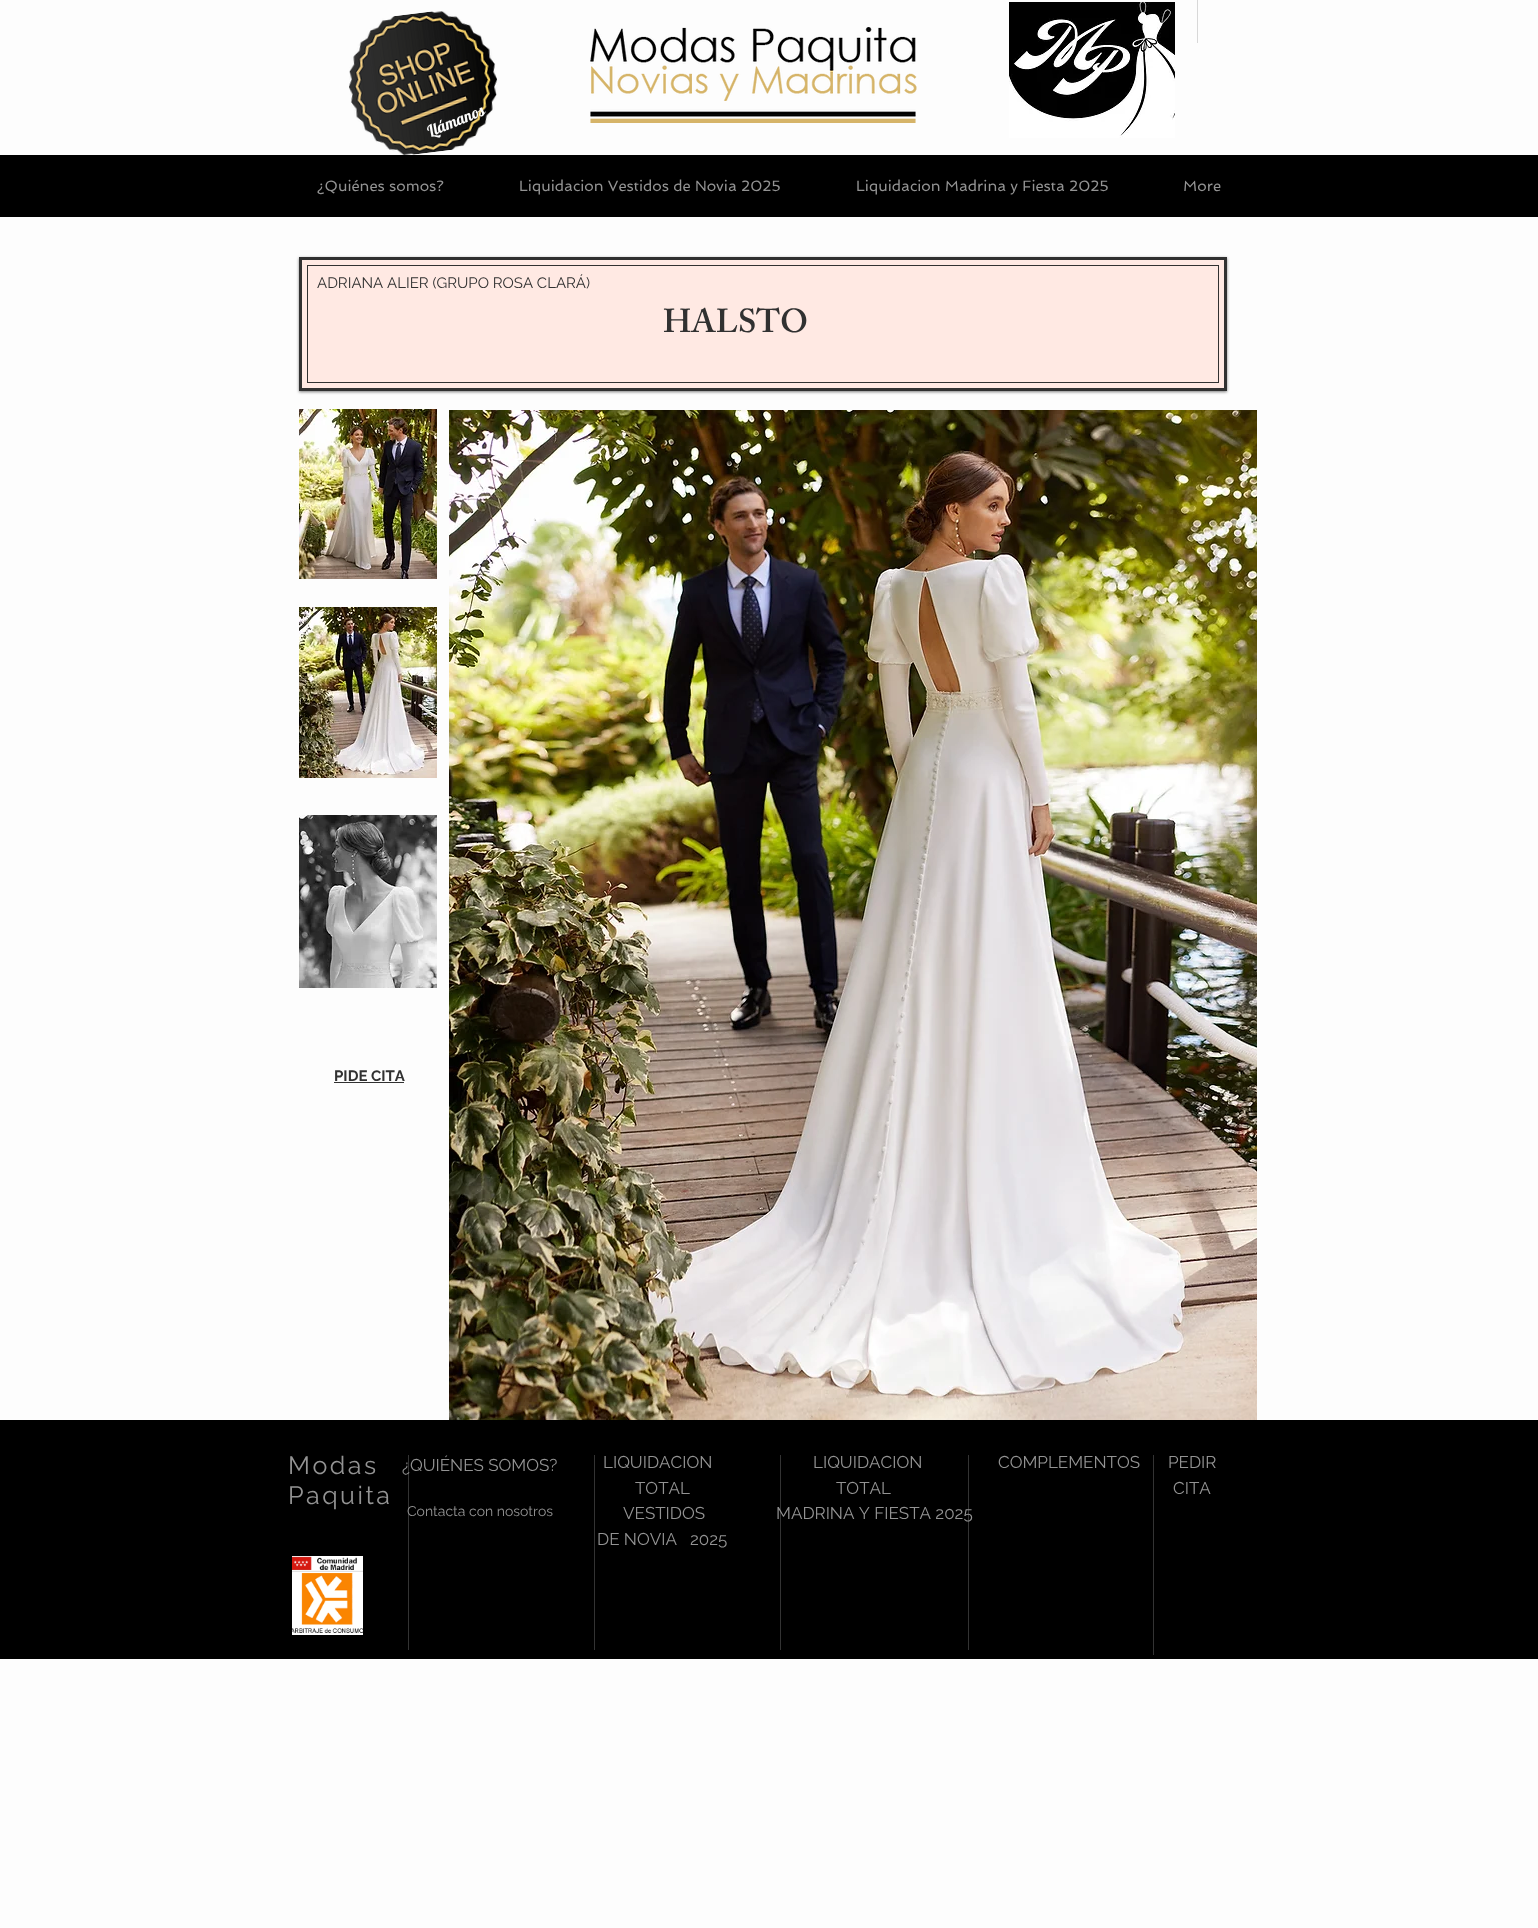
<?xml version="1.0" encoding="UTF-8"?>
<svg xmlns="http://www.w3.org/2000/svg" width="1538" height="1928">
    <style>*{font-kerning:none!important;font-variant-ligatures:none!important}</style>
    <defs>
        <filter id="blur1" x="-50%" y="-200%" width="200%" height="500%"><feGaussianBlur stdDeviation="1.5"/></filter>
    </defs>
    <rect width="100%" height="100%" fill="#FDFDFD"/>
    <image x="349" y="11" width="149" height="144" href="img_01.png"/>
    <image x="590" y="27" width="327" height="96" href="img_02.png"/>
    <image x="1009" y="2" width="166" height="136" href="img_03.png"/>
    <rect x="1197" y="0" width="1" height="43" fill="#D8D8D8"/>
    <text x="430" y="137" transform="rotate(-21.9 430 137)" font-family="Lobster" font-size="16" fill="#FDFDFD">Llámanos</text>
    <rect x="0" y="155" width="1538" height="62" fill="#000000"/>
    <text x="317" y="191" font-family="Spinnaker" font-size="15" fill="#939393">¿Quiénes somos?</text>
    <text x="519" y="191" font-family="Spinnaker" font-size="15" fill="#939393">Liquidacion Vestidos de Novia 2025</text>
    <text x="856" y="191" font-family="Spinnaker" font-size="15" fill="#939393">Liquidacion Madrina y Fiesta 2025</text>
    <text x="1183" y="191" font-family="Spinnaker" font-size="15" fill="#939393">More</text>
    <rect x="299" y="258" width="928" height="134" fill="#000000" fill-opacity="0.5" filter="url(#blur1)"/>
    <rect x="300.5" y="258.5" width="925" height="131" fill="#FFE9E3" stroke="#313131" stroke-width="3"/>
    <rect x="307.5" y="265.5" width="911" height="117" fill="none" stroke="#313131"/>
    <text x="317" y="288" font-family="Raleway" font-size="15" fill="#313131">ADRIANA ALIER (GRUPO ROSA CLARÁ)</text>
    <text x="663" y="332" font-family="'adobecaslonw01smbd'" font-size="33" font-weight="600" fill="#313131">HALSTO</text>
    <image x="299" y="409" width="138" height="170" href="img_04.png"/>
    <image x="449" y="410" width="808" height="1010" href="img_05.png"/>
    <image x="299" y="607" width="138" height="171" href="img_06.png"/>
    <image x="299" y="815" width="138" height="173" href="img_07.png"/>
    <text x="334" y="1081" font-family="Raleway" font-size="15" font-weight="700" fill="#313131">PIDE CITA</text>
    <rect x="334" y="1082" width="70" height="1" fill="#313131"/>
    <rect x="0" y="1420" width="1538" height="239" fill="#000000"/>
    <text font-family="Raleway" font-size="25" letter-spacing="2.5" fill="#939393">
        <tspan x="288" y="1474">Modas</tspan>
        <tspan x="288" y="1504">Paquita</tspan>
    </text>
    <text x="402" y="1471" font-family="Raleway" font-size="17" fill="#939393">¿QUIÉNES SOMOS?</text>
    <text x="407" y="1516" font-family="Raleway" font-size="14" fill="#939393">Contacta con nosotros</text>
    <rect x="408" y="1455" width="1" height="195" fill="#939393" fill-opacity="0.35"/>
    <rect x="594" y="1455" width="1" height="195" fill="#333333"/>
    <text x="603" y="1468" font-family="Raleway" font-size="17" fill="#939393">LIQUIDACION</text>
    <text x="635" y="1494" font-family="Raleway" font-size="17" fill="#939393">TOTAL</text>
    <text x="623" y="1519" font-family="Raleway" font-size="17" fill="#939393">VESTIDOS</text>
    <text x="597" y="1545" font-family="Raleway" font-size="17" fill="#939393">DE NOVIA</text>
    <text x="690" y="1545" font-family="Raleway" font-size="17" fill="#939393">2025</text>
    <text x="813" y="1468" font-family="Raleway" font-size="17" fill="#939393">LIQUIDACION</text>
    <text x="836" y="1494" font-family="Raleway" font-size="17" fill="#939393">TOTAL</text>
    <text x="776" y="1519" font-family="Raleway" font-size="17" fill="#939393">MADRINA Y FIESTA 2025</text>
    <rect x="780" y="1455" width="1" height="195" fill="#939393" fill-opacity="0.35"/>
    <rect x="968" y="1455" width="1" height="195" fill="#939393" fill-opacity="0.35"/>
    <text x="998" y="1468" font-family="Raleway" font-size="17" fill="#939393">COMPLEMENTOS</text>
    <rect x="1153" y="1455" width="1" height="200" fill="#333333"/>
    <text x="1168" y="1468" font-family="Raleway" font-size="17" fill="#939393">PEDIR</text>
    <text x="1173" y="1494" font-family="Raleway" font-size="17" fill="#939393">CITA</text>
    <image x="292" y="1556" width="71" height="79" href="img_08.png"/>
</svg>
